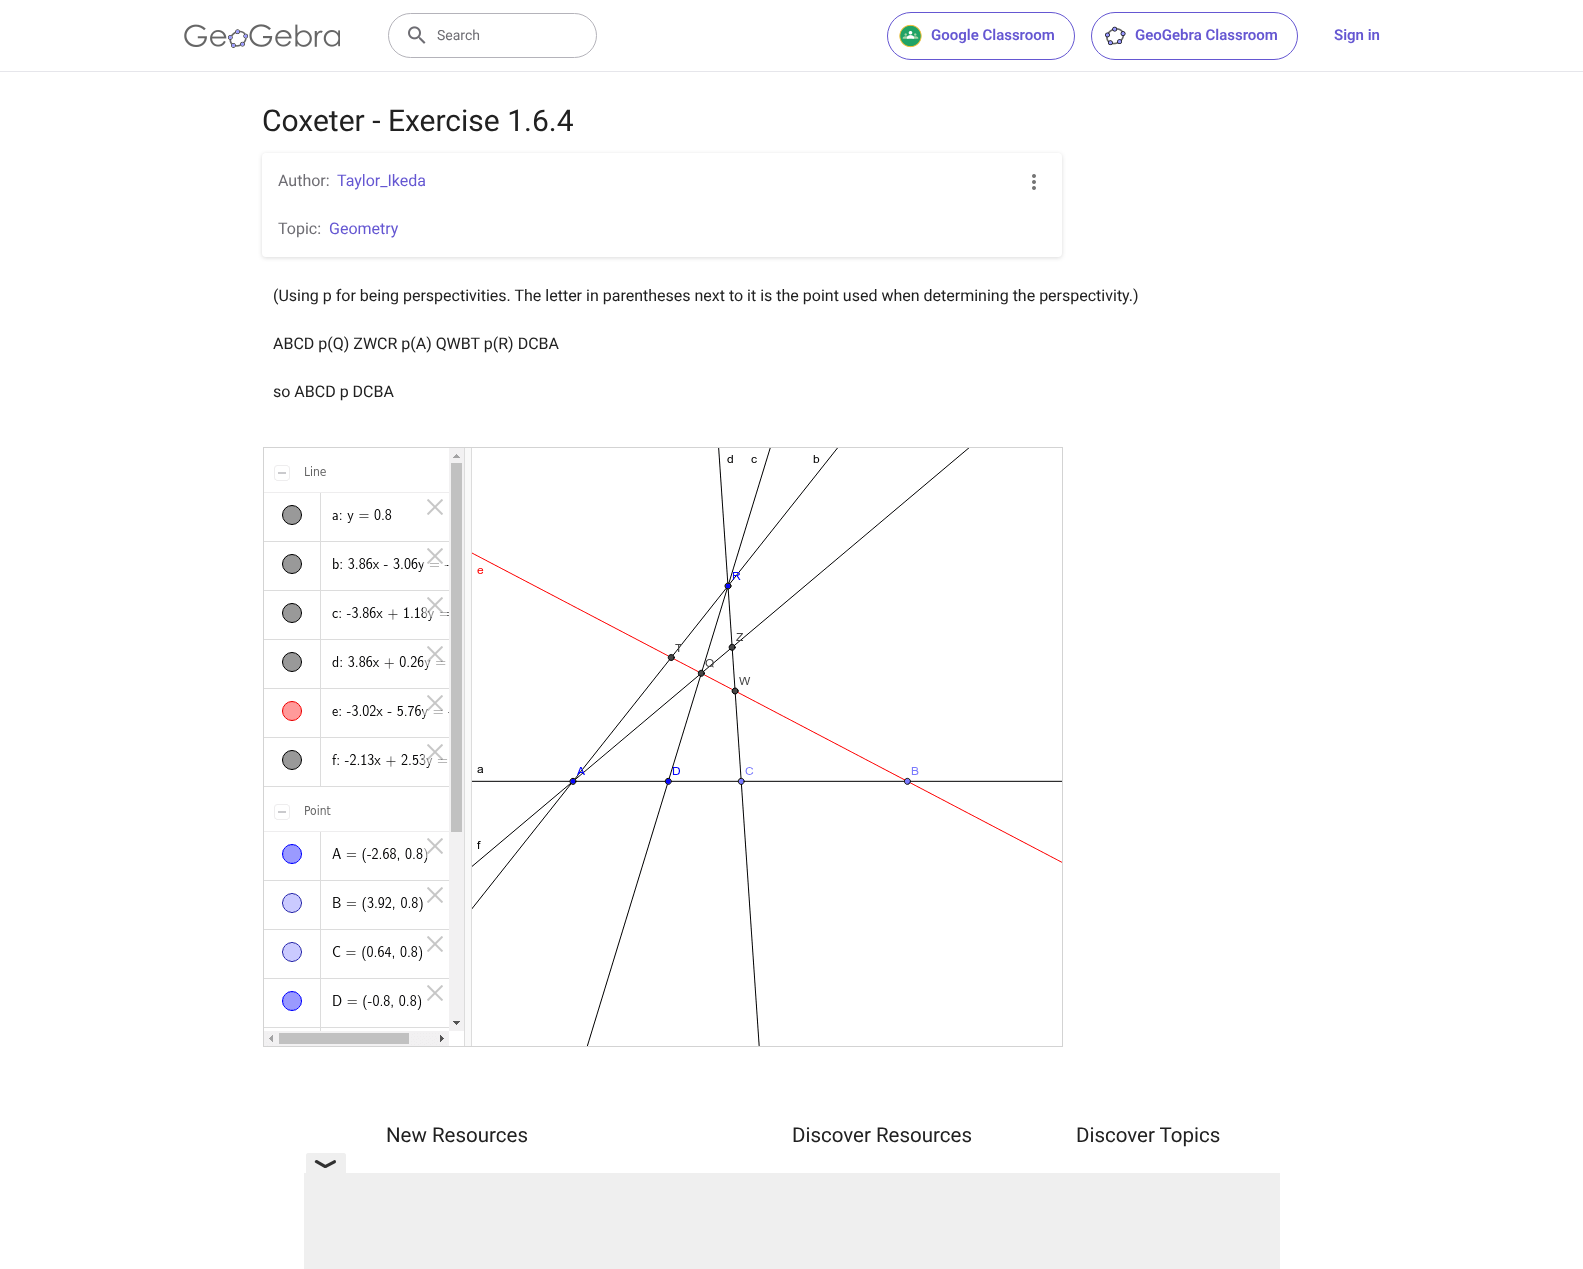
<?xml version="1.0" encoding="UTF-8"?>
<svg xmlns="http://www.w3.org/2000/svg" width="1583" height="1269">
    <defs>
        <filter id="blur1" x="-50%" y="-200%" width="200%" height="500%"><feGaussianBlur stdDeviation="2"/></filter>
    </defs>
    <rect width="100%" height="100%" fill="#FFFFFF"/>
    <rect x="0" y="71" width="1583" height="1" fill="#E6E6EB"/>
    <image x="184" y="24" width="156" height="24" href="img_01.png"/>
    <rect x="388.5" y="13.5" width="208" height="44" rx="22" fill="none" stroke="#B4B3BA"/>
    <image x="408" y="26" width="18" height="18" href="img_02.png"/>
    <text x="437" y="40" font-family="Roboto" font-size="14" fill="#6E6D73">Search</text>
    <rect x="887.5" y="12.5" width="187" height="47" rx="23.5" fill="none" stroke="#6557D2"/>
    <image x="899" y="24" width="23" height="24" href="img_03.png"/>
    <text x="931" y="40" font-family="Roboto" font-size="15" font-weight="600" fill="#6557D2">Google Classroom</text>
    <rect x="1091.5" y="12.5" width="206" height="47" rx="23.5" fill="none" stroke="#6557D2"/>
    <image x="1105" y="26" width="21" height="20" href="img_04.png"/>
    <text x="1135" y="40" font-family="Roboto" font-size="15" font-weight="600" fill="#6557D2">GeoGebra Classroom</text>
    <text x="1334" y="40" font-family="Roboto" font-size="15" font-weight="600" fill="#6557D2">Sign in</text>
    <text x="262" y="131" font-family="Roboto" font-size="30" fill="#212121">Coxeter - Exercise 1.6.4</text>
    <rect x="262" y="154" width="800" height="104" rx="4" fill="#1C1C1F" fill-opacity="0.14" filter="url(#blur1)"/>
    <rect x="262" y="153" width="800" height="104" rx="4" fill="#FFFFFF"/>
    <text x="278" y="186" font-family="Roboto" font-size="16" fill="#6E6D73">Author:</text>
    <text x="337" y="186" font-family="Roboto" font-size="16" fill="#6557D2">Taylor_Ikeda</text>
    <text x="278" y="234" font-family="Roboto" font-size="16" fill="#6E6D73">Topic:</text>
    <text x="329" y="234" font-family="Roboto" font-size="16" fill="#6557D2">Geometry</text>
    <image x="1032" y="174" width="4" height="16" href="img_05.png"/>
    <text x="273" y="301" font-family="Roboto" font-size="16" fill="#212121">(Using p for being perspectivities. The letter in parentheses next to it is the point used when determining the perspectivity.)</text>
    <text x="273" y="349" font-family="Roboto" font-size="16" fill="#212121">ABCD p(Q) ZWCR p(A) QWBT p(R) DCBA</text>
    <text x="273" y="397" font-family="Roboto" font-size="16" fill="#212121">so ABCD p DCBA</text>
    <image x="264" y="448" width="798" height="598" href="img_06.png"/>
    <rect x="263.5" y="447.5" width="799" height="599" fill="none" stroke="#D3D3D3"/>
    <text x="386" y="1142" font-family="Roboto" font-size="20.5" fill="#212121">New Resources</text>
    <text x="792" y="1142" font-family="Roboto" font-size="20.5" fill="#212121">Discover Resources</text>
    <text x="1076" y="1142" font-family="Roboto" font-size="20.5" fill="#212121">Discover Topics</text>
    <path d="M 308 1153 H 344 C 345 1153 346 1154 346 1155 V 1173 H 306 V 1155 C 306 1154 307 1153 308 1153 Z" fill="#EFEFEF"/>
    <path d="M 317 1160 L 326.5 1165.5 C 327 1167 325.5 1168.5 324.5 1168 L 315 1162.5 C 314 1161 316 1159.5 317 1160 Z" fill="#313131"/>
    <path d="M 325 1165 L 334.5 1160 C 336 1160 336.5 1162 335.5 1163 L 326 1168 C 324.5 1168 324 1166 325 1165 Z" fill="#313131"/>
    <rect x="304" y="1173" width="976" height="96" fill="#EFEFEF"/>
</svg>
